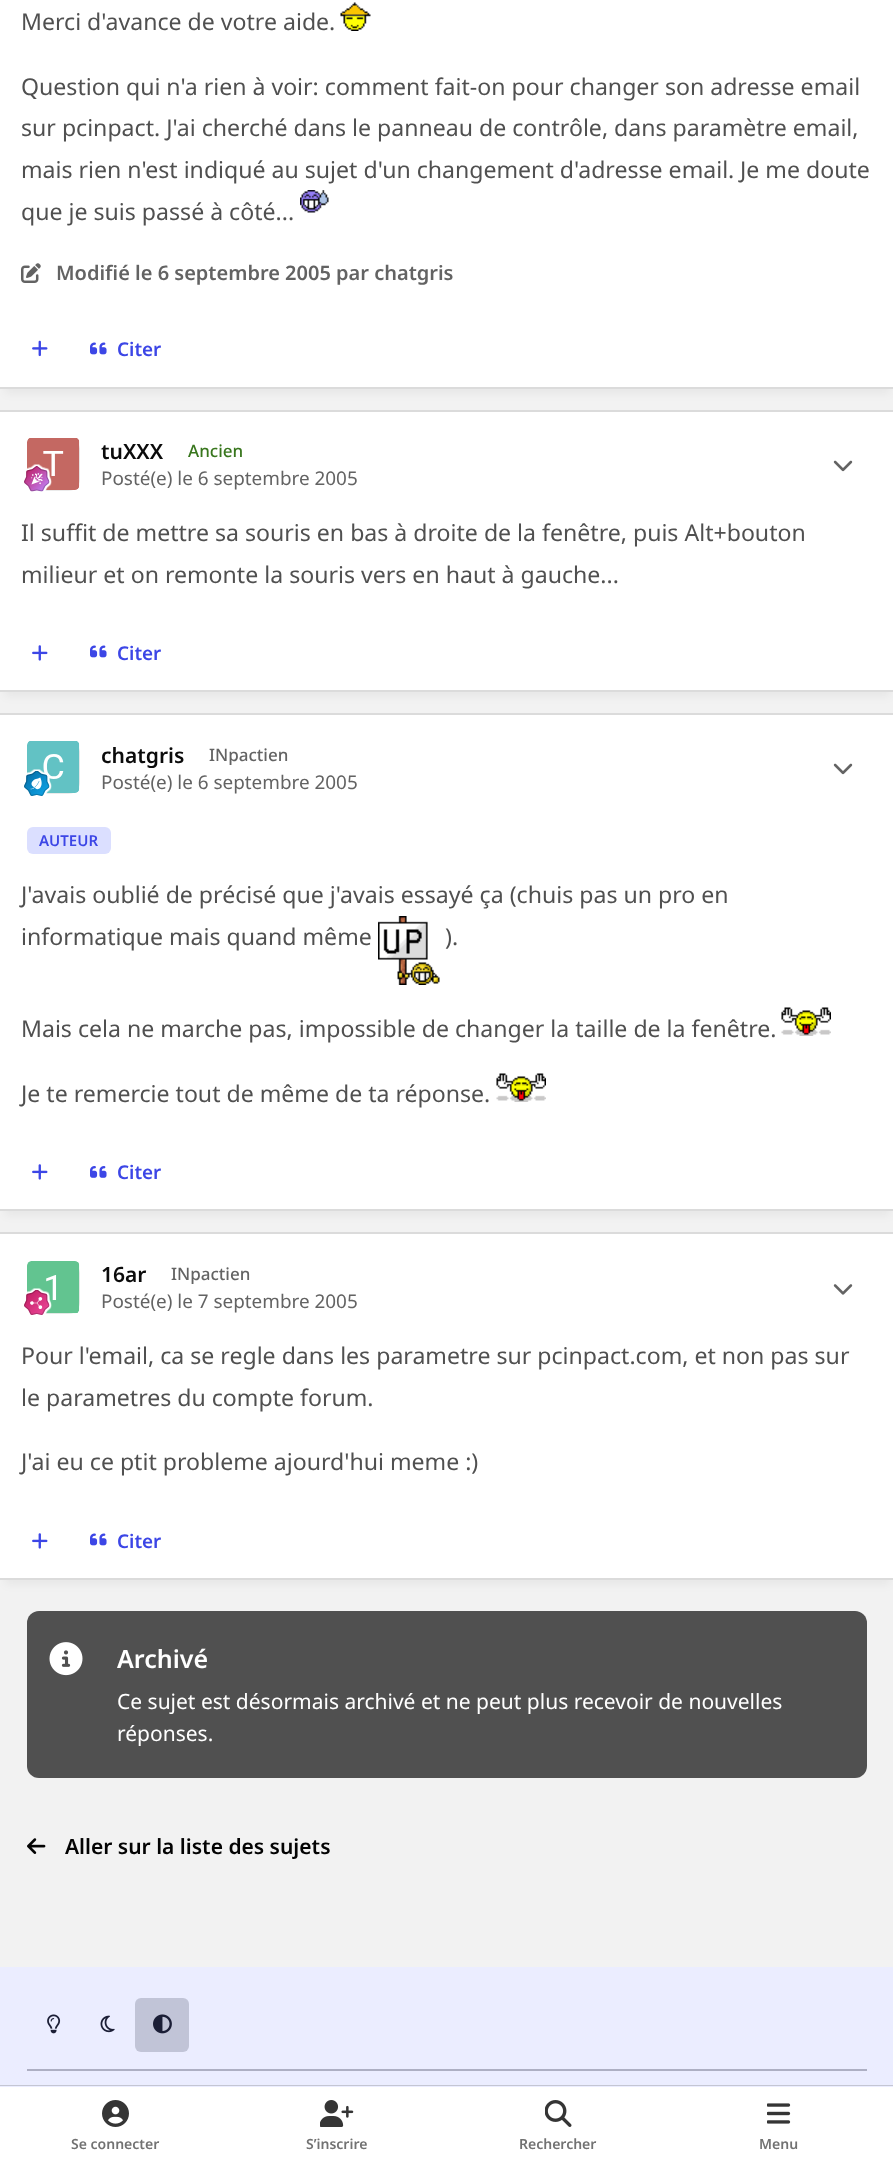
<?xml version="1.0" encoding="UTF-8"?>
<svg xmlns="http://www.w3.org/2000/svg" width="893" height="2168">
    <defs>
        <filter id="blur1" x="-50%" y="-200%" width="200%" height="500%"><feGaussianBlur stdDeviation="5"/></filter>
    </defs>
    <rect width="100%" height="100%" fill="#F2F2F2"/>
    <rect x="5" y="-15" width="885" height="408" fill="#030303" fill-opacity="0.05" filter="url(#blur1)"/>
    <rect x="0" y="0" width="893" height="387" fill="#FFFFFF"/>
    <rect x="0" y="387" width="893" height="2" fill="#DBDBDB"/>
    <text x="21" y="30" font-family="Noto Sans" font-size="23.1" fill="#505050">Merci d'avance de votre aide.</text>
    <image x="340" y="2" width="31" height="29" href="img_01.png"/>
    <text font-family="Noto Sans" font-size="23.1" fill="#505050">
        <tspan x="21" y="95">Question qui n'a rien à voir: comment fait-on pour changer son adresse email</tspan>
        <tspan x="21" y="136">sur pcinpact. J'ai cherché dans le panneau de contrôle, dans paramètre email,</tspan>
        <tspan x="21" y="178">mais rien n'est indiqué au sujet d'un changement d'adresse email.</tspan>
    </text>
    <text x="740" y="178" font-family="Noto Sans" font-size="23.1" fill="#505050">Je me doute</text>
    <text x="21" y="220" font-family="Noto Sans" font-size="23.1" fill="#505050">que je suis passé à côté...</text>
    <image x="300" y="190" width="29" height="23" href="img_02.png"/>
    <image x="21" y="263" width="20" height="20" href="img_03.png"/>
    <text x="56" y="280" font-family="Noto Sans" font-size="20" font-weight="600" fill="#636363">Modifié le 6 septembre 2005 par chatgris</text>
    <image x="32" y="340" width="16" height="17" href="img_04.png"/>
    <image x="90" y="342" width="17" height="13" href="img_05.png"/>
    <text x="117" y="356" font-family="Noto Sans" font-size="18.9" font-weight="600" fill="#3C46E6">Citer</text>
    <rect x="5" y="423" width="885" height="273" fill="#030303" fill-opacity="0.05" filter="url(#blur1)"/>
    <rect x="0" y="412" width="893" height="278" fill="#FFFFFF"/>
    <rect x="0" y="410" width="893" height="2" fill="#DBDBDB"/>
    <rect x="0" y="690" width="893" height="2" fill="#DBDBDB"/>
    <rect x="27" y="438" width="53" height="53" rx="12" fill="#EAEAEA"/>
    <image x="27" y="438" width="53" height="52" href="img_06.png"/>
    <image x="24" y="464" width="28" height="28" href="img_07.png"/>
    <text x="101" y="459" font-family="Noto Sans" font-size="21" font-weight="600" fill="#0B0B0B">tuXXX</text>
    <text x="188" y="457" font-family="Noto Sans" font-size="17" font-weight="500" fill="#38761D">Ancien</text>
    <text x="101" y="485" font-family="Noto Sans" font-size="18.9" fill="#636363">Posté(e) le 6 septembre 2005</text>
    <image x="833" y="460" width="20" height="12" href="img_08.png"/>
    <text font-family="Noto Sans" font-size="23.1" fill="#505050">
        <tspan x="21" y="541">Il suffit de mettre sa souris en bas à droite de la fenêtre, puis Alt+bouton</tspan>
        <tspan x="21" y="583">milieur et on remonte la souris vers en haut à gauche...</tspan>
    </text>
    <image x="32" y="645" width="16" height="16" href="img_09.png"/>
    <image x="90" y="645" width="17" height="13" href="img_05.png"/>
    <text x="117" y="660" font-family="Noto Sans" font-size="18.9" font-weight="600" fill="#3C46E6">Citer</text>
    <rect x="5" y="726" width="885" height="489" fill="#030303" fill-opacity="0.05" filter="url(#blur1)"/>
    <rect x="0" y="715" width="893" height="494" fill="#FFFFFF"/>
    <rect x="0" y="713" width="893" height="2" fill="#DBDBDB"/>
    <rect x="0" y="1209" width="893" height="2" fill="#DBDBDB"/>
    <rect x="27" y="741" width="53" height="53" rx="12" fill="#EAEAEA"/>
    <image x="27" y="741" width="53" height="52" href="img_10.png"/>
    <image x="24" y="769" width="28" height="27" href="img_11.png"/>
    <text x="101" y="763" font-family="Noto Sans" font-size="21" font-weight="600" fill="#0B0B0B">chatgris</text>
    <text x="209" y="761" font-family="Noto Sans" font-size="17" font-weight="500" fill="#636363">INpactien</text>
    <text x="101" y="789" font-family="Noto Sans" font-size="18.9" fill="#636363">Posté(e) le 6 septembre 2005</text>
    <image x="833" y="763" width="20" height="12" href="img_08.png"/>
    <rect x="27" y="827" width="84" height="27" rx="6" fill="#DBDFFF"/>
    <text x="39" y="846" font-family="Noto Sans" font-size="15" font-weight="600" fill="#3C46E6">AUTEUR</text>
    <text font-family="Noto Sans" font-size="23.1" fill="#505050">
        <tspan x="21" y="903">J'avais oublié de précisé que j'avais essayé ça (chuis pas un pro en</tspan>
        <tspan x="21" y="945">informatique mais quand même</tspan>
    </text>
    <image x="378" y="916" width="62" height="69" href="img_12.png"/>
    <text x="445" y="945" font-family="Noto Sans" font-size="23.1" fill="#505050">).</text>
    <text x="21" y="1037" font-family="Noto Sans" font-size="23.1" fill="#505050">Mais cela ne marche pas, impossible de changer la taille de la fenêtre.</text>
    <image x="781" y="1007" width="50" height="29" href="img_13.png"/>
    <text x="21" y="1102" font-family="Noto Sans" font-size="23.1" fill="#505050">Je te remercie tout de même de ta réponse.</text>
    <image x="496" y="1073" width="50" height="29" href="img_13.png"/>
    <image x="32" y="1164" width="16" height="16" href="img_09.png"/>
    <image x="90" y="1166" width="17" height="12" href="img_14.png"/>
    <text x="117" y="1179" font-family="Noto Sans" font-size="18.9" font-weight="600" fill="#3C46E6">Citer</text>
    <rect x="5" y="1245" width="885" height="339" fill="#030303" fill-opacity="0.05" filter="url(#blur1)"/>
    <rect x="0" y="1234" width="893" height="344" fill="#FFFFFF"/>
    <rect x="0" y="1232" width="893" height="2" fill="#DBDBDB"/>
    <rect x="0" y="1578" width="893" height="2" fill="#DBDBDB"/>
    <rect x="27" y="1262" width="53" height="52" rx="12" fill="#EAEAEA"/>
    <image x="27" y="1261" width="53" height="53" href="img_15.png"/>
    <image x="24" y="1288" width="28" height="27" href="img_16.png"/>
    <text x="101" y="1282" font-family="Noto Sans" font-size="21" font-weight="600" fill="#0B0B0B">16ar</text>
    <text x="171" y="1280" font-family="Noto Sans" font-size="17" font-weight="500" fill="#636363">INpactien</text>
    <text x="101" y="1308" font-family="Noto Sans" font-size="18.9" fill="#636363">Posté(e) le 7 septembre 2005</text>
    <image x="833" y="1284" width="20" height="11" href="img_17.png"/>
    <text font-family="Noto Sans" font-size="23.1" fill="#505050">
        <tspan x="21" y="1364">Pour l'email, ca se regle dans les parametre sur pcinpact.com, et non pas sur</tspan>
        <tspan x="21" y="1406">le parametres du compte forum.</tspan>
    </text>
    <text x="21" y="1470" font-family="Noto Sans" font-size="23.1" fill="#505050">J'ai eu ce ptit probleme ajourd'hui meme :)</text>
    <image x="32" y="1533" width="16" height="16" href="img_09.png"/>
    <image x="90" y="1533" width="17" height="13" href="img_05.png"/>
    <text x="117" y="1548" font-family="Noto Sans" font-size="18.9" font-weight="600" fill="#3C46E6">Citer</text>
    <rect x="27" y="1611" width="840" height="167" rx="12" fill="#505050"/>
    <image x="49" y="1642" width="34" height="34" href="img_18.png"/>
    <text x="117" y="1668" font-family="Noto Sans" font-size="25" font-weight="600" fill="#FFFFFF">Archivé</text>
    <text font-family="Noto Sans" font-size="21" fill="#FFFFFF">
        <tspan x="117" y="1709">Ce sujet est désormais archivé et ne peut plus recevoir de nouvelles</tspan>
        <tspan x="117" y="1741">réponses.</tspan>
    </text>
    <image x="27" y="1838" width="19" height="16" href="img_19.png"/>
    <text x="65" y="1854" font-family="Noto Sans" font-size="21" font-weight="600" fill="#030303">Aller sur la liste des sujets</text>
    <rect x="0" y="1967" width="893" height="120" fill="#EBEDFF"/>
    <image x="47" y="2014" width="14" height="20" href="img_20.png"/>
    <image x="100" y="2015" width="15" height="18" href="img_21.png"/>
    <rect x="135" y="1998" width="54" height="54" rx="6" fill="#C1C4D7"/>
    <image x="153" y="2014" width="19" height="20" href="img_22.png"/>
    <rect x="27" y="2069" width="840" height="2" fill="#ADAFC3"/>
    <rect x="0" y="2085" width="893" height="1" fill="#C4C6D3"/>
    <rect x="0" y="2087" width="893" height="81" fill="#FFFFFF"/>
    <image x="102" y="2100" width="27" height="27" href="img_23.png"/>
    <text x="71" y="2149" font-family="Noto Sans" font-size="14" font-weight="600" fill="#727272">Se connecter</text>
    <image x="320" y="2100" width="34" height="27" href="img_24.png"/>
    <text x="306" y="2149" font-family="Noto Sans" font-size="14" font-weight="600" fill="#727272">S’inscrire</text>
    <image x="545" y="2100" width="27" height="27" href="img_25.png"/>
    <text x="519" y="2149" font-family="Noto Sans" font-size="14" font-weight="600" fill="#727272">Rechercher</text>
    <image x="767" y="2103" width="24" height="21" href="img_26.png"/>
    <text x="759" y="2149" font-family="Noto Sans" font-size="14" font-weight="600" fill="#727272">Menu</text>
</svg>
